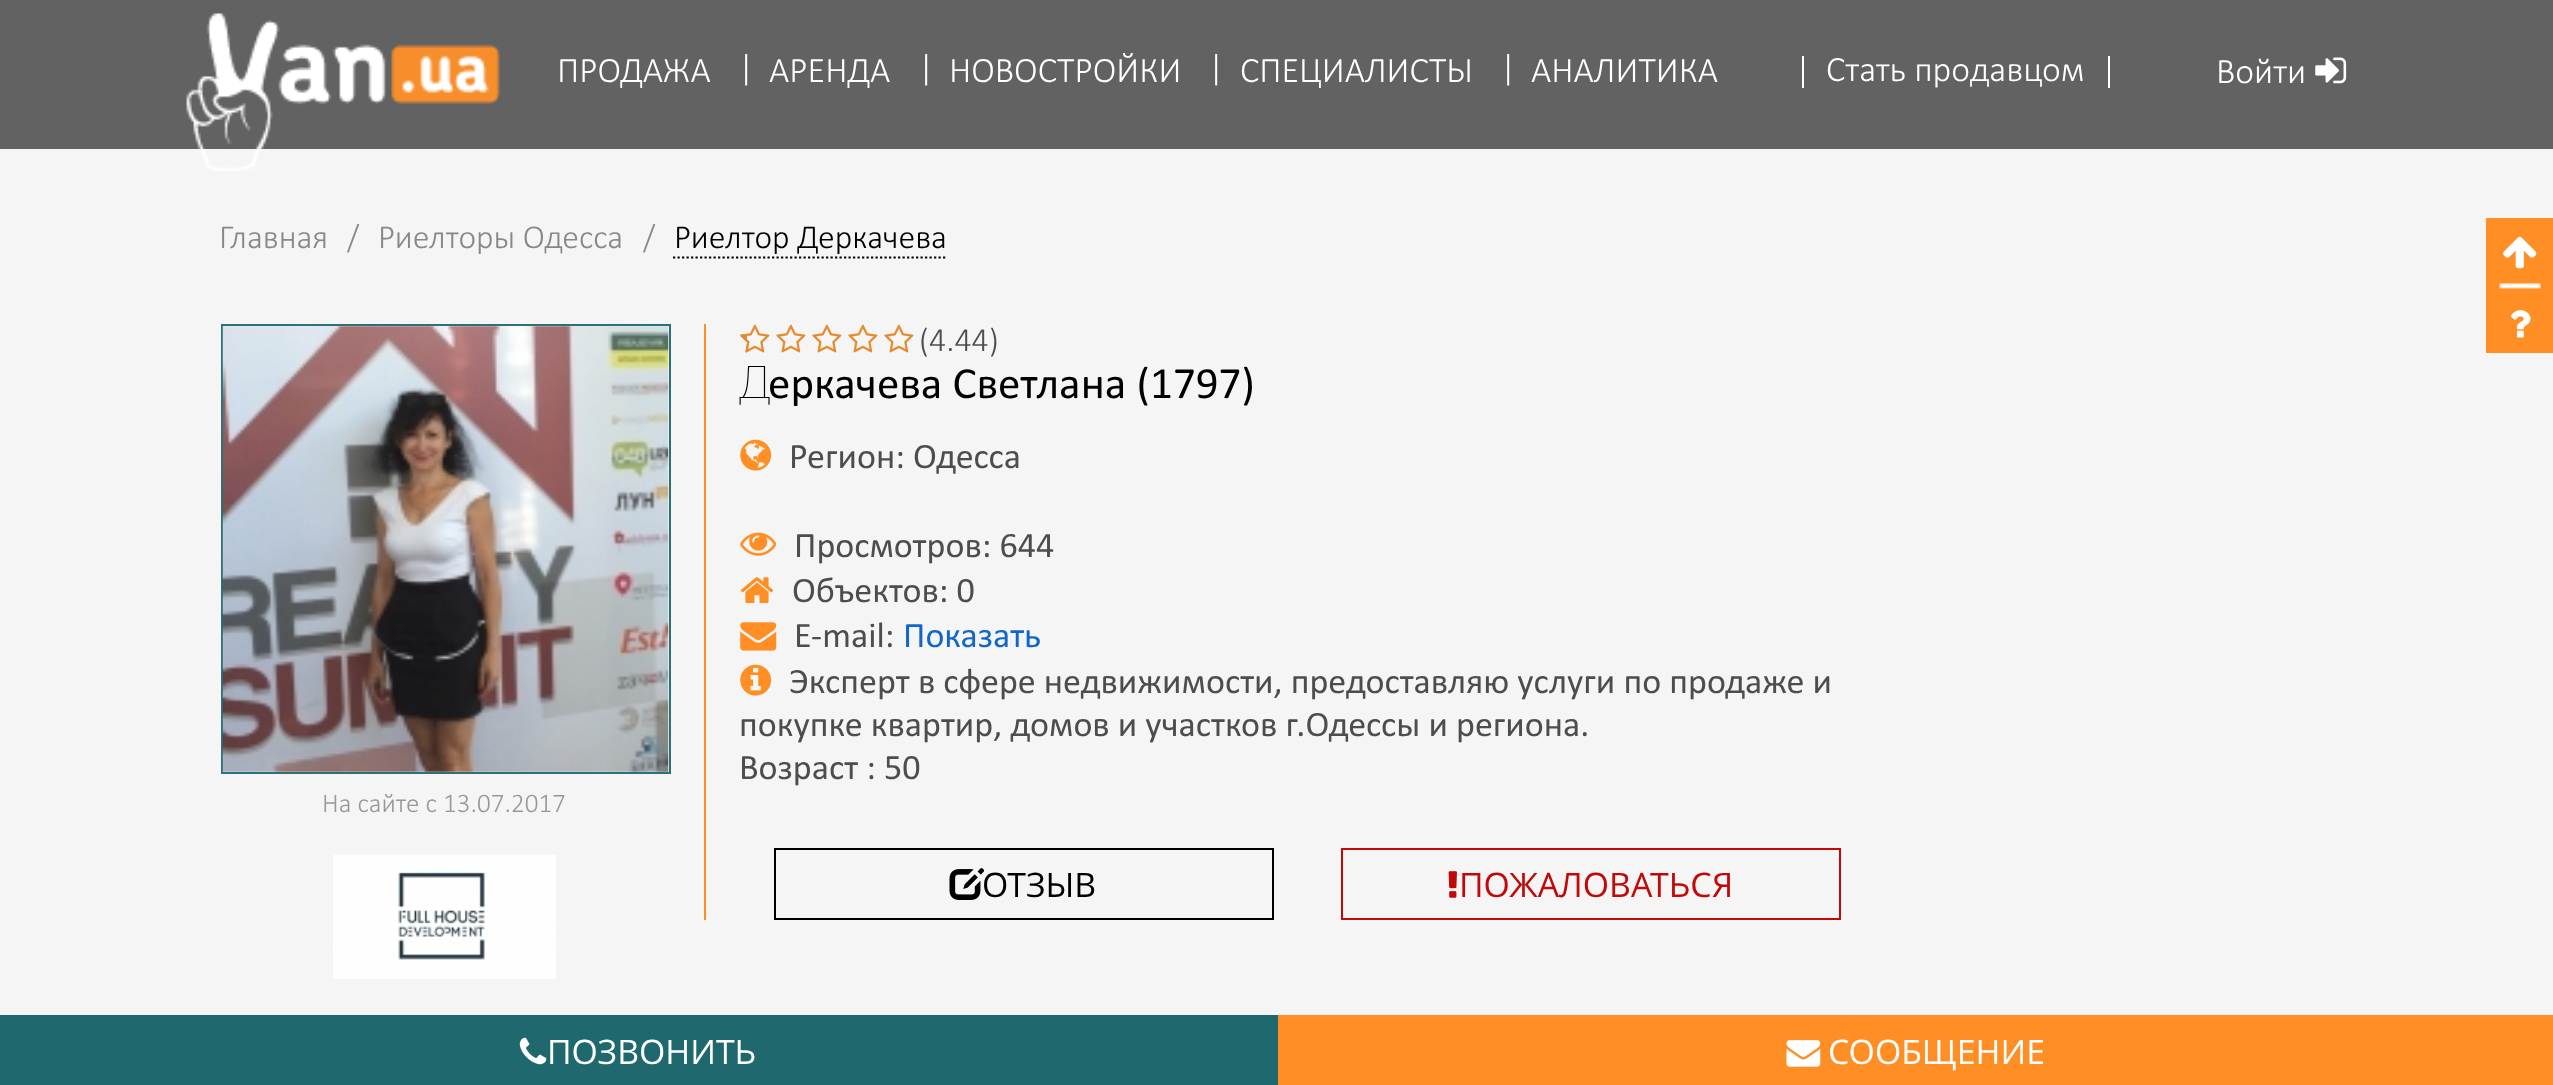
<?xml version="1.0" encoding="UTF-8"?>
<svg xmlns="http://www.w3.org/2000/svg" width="2553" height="1085">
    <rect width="100%" height="100%" fill="#F5F5F5"/>
    <rect x="0" y="0" width="2553" height="149" fill="#626262"/>
    <image x="186" y="13" width="314" height="158" href="img_01.png"/>
    <text x="557" y="82" font-family="Calibri" font-size="36" font-weight="300" fill="#FFFFFF">ПРОДАЖА</text>
    <text x="738" y="79" font-family="Calibri" font-size="36" font-weight="300" fill="#FFFFFF">|</text>
    <text x="769" y="82" font-family="Calibri" font-size="36" font-weight="300" fill="#FFFFFF">АРЕНДА</text>
    <text x="918" y="79" font-family="Calibri" font-size="36" font-weight="300" fill="#FFFFFF">|</text>
    <text x="949" y="82" font-family="Calibri" font-size="36" font-weight="300" fill="#FFFFFF">НОВОСТРОЙКИ</text>
    <text x="1208" y="79" font-family="Calibri" font-size="36" font-weight="300" fill="#FFFFFF">|</text>
    <text x="1240" y="82" font-family="Calibri" font-size="36" font-weight="300" fill="#FFFFFF">СПЕЦИАЛИСТЫ</text>
    <text x="1500" y="79" font-family="Calibri" font-size="36" font-weight="300" fill="#FFFFFF">|</text>
    <text x="1531" y="82" font-family="Calibri" font-size="36" font-weight="300" fill="#FFFFFF">АНАЛИТИКА</text>
    <rect x="1802" y="56" width="2" height="32" fill="#FFFFFF"/>
    <text x="1826" y="81" font-family="Calibri" font-size="36" font-weight="300" fill="#FFFFFF">Стать продавцом</text>
    <rect x="2108" y="56" width="2" height="32" fill="#FFFFFF"/>
    <text x="2216" y="83" font-family="Calibri" font-size="36" font-weight="300" fill="#FFFFFF">Войти</text>
    <image x="2315" y="57" width="32" height="27" href="img_02.png"/>
    <text x="219" y="248" font-family="Calibri" font-size="33.75" font-weight="300" fill="#888888">Главная</text>
    <text x="347" y="248" font-family="Calibri" font-size="33.75" font-weight="300" fill="#888888">/</text>
    <text x="378" y="248" font-family="Calibri" font-size="33.75" font-weight="300" fill="#888888">Риелторы Одесса</text>
    <text x="643" y="248" font-family="Calibri" font-size="33.75" font-weight="300" fill="#888888">/</text>
    <text x="674" y="248" font-family="Calibri" font-size="33.75" font-weight="300" fill="#000000">Риелтор Деркачева</text>
    <path d="M 673 257.5 H 947" fill="none" stroke="#000000" stroke-width="2.2" stroke-dasharray="2.25 2.25"/>
    <rect x="704" y="324" width="2" height="596" fill="#FF8E24"/>
    <image x="740" y="324" width="30" height="29" href="img_03.png"/>
    <image x="776" y="324" width="30" height="29" href="img_03.png"/>
    <image x="812" y="324" width="30" height="29" href="img_03.png"/>
    <image x="848" y="324" width="30" height="29" href="img_03.png"/>
    <image x="884" y="324" width="30" height="29" href="img_03.png"/>
    <image x="740" y="333" width="7" height="20" href="img_04.png"/>
    <text x="919" y="351" font-family="Calibri" font-size="33.75" font-weight="300" fill="#4D4D4D">(4.44)</text>
    <text x="739" y="398" font-family="Noto Sans" font-size="45" font-weight="100" fill="#000000">Д</text>
    <text x="768" y="398" font-family="Calibri" font-size="45" fill="#000000">еркачева Светлана (1797)</text>
    <rect x="222" y="325" width="448" height="448" fill="none" stroke="#2B7176" stroke-width="2"/>
    <image x="222" y="326" width="447" height="446" href="img_05.png"/>
    <text x="322" y="812" font-family="Calibri" font-size="27" font-weight="300" fill="#989898">На сайте с 13.07.2017</text>
    <image x="333" y="855" width="223" height="124" href="img_06.png"/>
    <image x="740" y="439" width="32" height="32" href="img_07.png"/>
    <text x="789" y="468" font-family="Calibri" font-size="36" fill="#4D4D4D">Регион: Одесса</text>
    <image x="740" y="532" width="37" height="24" href="img_08.png"/>
    <text x="794" y="557" font-family="Calibri" font-size="36" fill="#4D4D4D">Просмотров: 644</text>
    <image x="740" y="577" width="34" height="26" href="img_09.png"/>
    <text x="792" y="602" font-family="Calibri" font-size="36" fill="#4D4D4D">Объектов: 0</text>
    <image x="740" y="622" width="37" height="29" href="img_10.png"/>
    <text x="794" y="647" font-family="Calibri" font-size="36" fill="#4D4D4D">E-mail:</text>
    <text x="903" y="647" font-family="Calibri" font-size="36" fill="#1067C9">Показать</text>
    <image x="740" y="664" width="32" height="32" href="img_11.png"/>
    <text x="789" y="693" font-family="Calibri" font-size="36" fill="#4D4D4D">Эксперт в сфере недвижимости, предоставляю услуги по продаже и</text>
    <text font-family="Calibri" font-size="36" fill="#4D4D4D">
        <tspan x="739" y="736">покупке квартир, домов и участков г.Одессы и региона.</tspan>
        <tspan x="739" y="779">Возраст : 50</tspan>
    </text>
    <rect x="775" y="849" width="498" height="70" fill="none" stroke="#000000" stroke-width="2"/>
    <image x="949" y="868" width="35" height="32" href="img_12.png"/>
    <text x="982" y="897" font-family="Open Sans" font-size="33.75" fill="#000000">ОТЗЫВ</text>
    <rect x="1342" y="849" width="498" height="70" fill="none" stroke="#C20808" stroke-width="2"/>
    <image x="1448" y="871" width="9" height="27" href="img_13.png"/>
    <text x="1459" y="897" font-family="Open Sans" font-size="33.75" fill="#C20808">ПОЖАЛОВАТЬСЯ</text>
    <rect x="0" y="1015" width="1278" height="70" fill="#1F696E"/>
    <image x="519" y="1037" width="28" height="28" href="img_14.png"/>
    <text x="547" y="1064" font-family="Open Sans" font-size="33.75" fill="#FFFFFF">ПОЗВОНИТЬ</text>
    <rect x="1278" y="1015" width="1275" height="70" fill="#FF8E24"/>
    <image x="1786" y="1040" width="35" height="27" href="img_15.png"/>
    <text x="1828" y="1064" font-family="Open Sans" font-size="33.75" fill="#FFFFFF">СООБЩЕНИЕ</text>
    <rect x="2486" y="218" width="67" height="135" fill="#FF8E24"/>
    <image x="2499" y="283" width="42" height="6" href="img_16.png"/>
    <image x="2503" y="236" width="34" height="33" href="img_17.png"/>
    <image x="2510" y="310" width="21" height="28" href="img_18.png"/>
</svg>
